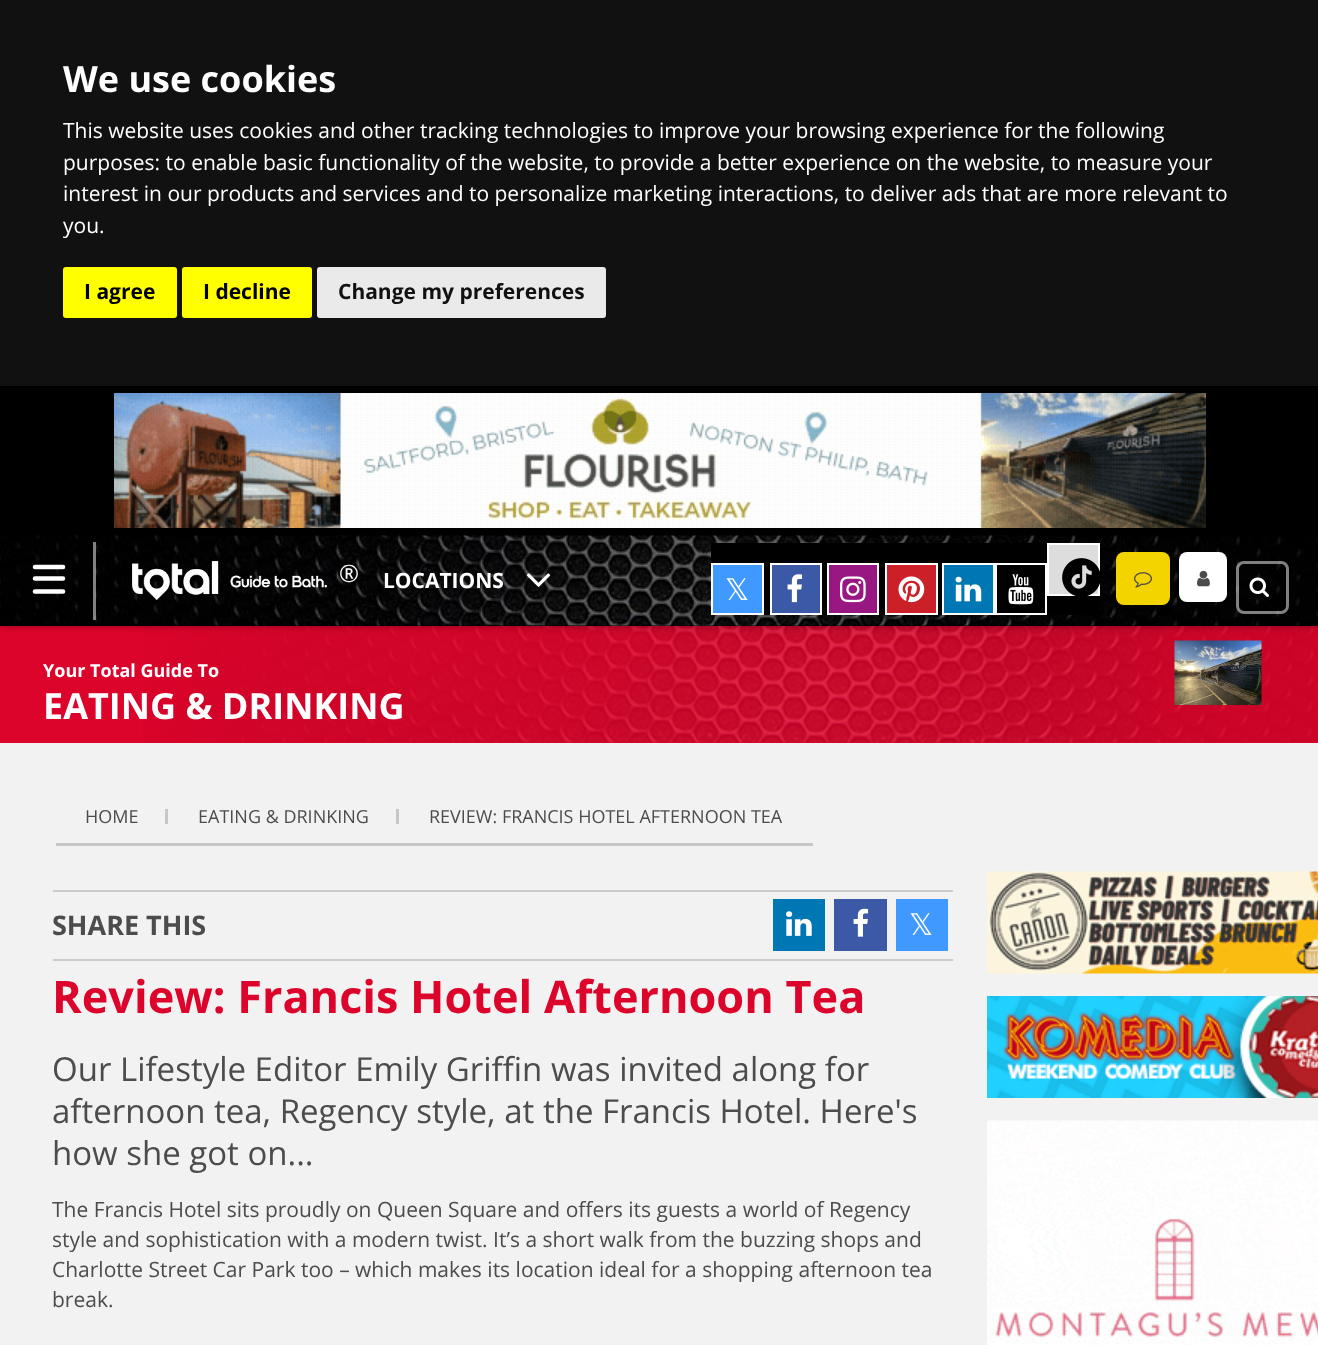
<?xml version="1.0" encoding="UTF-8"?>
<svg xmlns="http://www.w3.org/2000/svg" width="1318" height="1345">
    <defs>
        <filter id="blur1" x="-50%" y="-200%" width="200%" height="500%"><feGaussianBlur stdDeviation="4.5"/></filter>
    </defs>
    <rect width="100%" height="100%" fill="#000000"/>
    <rect x="0" y="0" width="1318" height="386" fill="#111111"/>
    <text x="63" y="92" font-family="Open Sans" font-size="36" font-weight="700" fill="#FFFFFF">We use cookies</text>
    <text font-family="Open Sans" font-size="21" fill="#FFFFFF">
        <tspan x="63" y="138">This website uses cookies and other tracking technologies to improve your browsing experience for the following</tspan>
        <tspan x="63" y="170">purposes: to enable basic functionality of the website, to provide a better experience on the website, to measure your</tspan>
        <tspan x="63" y="201">interest in our products and services and to personalize marketing interactions, to deliver ads that are more relevant to</tspan>
        <tspan x="63" y="233">you.</tspan>
    </text>
    <rect x="63" y="267" width="114" height="51" rx="3" fill="#FFFF00"/>
    <text x="84" y="299" font-family="Open Sans" font-size="21" font-weight="700" fill="#000000">I agree</text>
    <rect x="182" y="267" width="130" height="51" rx="3" fill="#FFFF00"/>
    <text x="203" y="299" font-family="Open Sans" font-size="21" font-weight="700" fill="#000000">I decline</text>
    <rect x="317" y="267" width="289" height="51" rx="3" fill="#EAEAEA"/>
    <text x="338" y="299" font-family="Open Sans" font-size="21" font-weight="700" fill="#111111">Change my preferences</text>
    <image x="114" y="393" width="1092" height="135" href="img_01.png"/>
    <rect x="0" y="626" width="1318" height="117" fill="#DD042B"/>
    <image x="143" y="626" width="1175" height="117" href="img_14.png"/>
    <image x="1174" y="640" width="88" height="65" href="img_15.png"/>
    <rect x="0" y="536" width="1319" height="90" fill="#000000" fill-opacity="0.3" filter="url(#blur1)"/>
    <image x="0" y="535" width="1318" height="91" href="img_02.png"/>
    <rect x="93" y="542" width="3" height="78" fill="#FFFFFF" fill-opacity="0.5"/>
    <path d="M 35 567 H 63 M 35 578.5 H 63 M 35 591.5 H 63" fill="none" stroke="#FFFFFF" stroke-width="4.6" stroke-linecap="round"/>
    <image x="132" y="561" width="195" height="39" href="img_03.png"/>
    <text x="339" y="582" font-family="Open Sans" font-size="24" fill="#FFFFFF">®</text>
    <text x="383" y="588" font-family="Open Sans" font-size="21" font-weight="700" fill="#FFFFFF">LOCATIONS</text>
    <image x="526" y="573" width="25" height="14" href="img_04.png"/>
    <rect x="711" y="543" width="389" height="72" fill="#000000"/>
    <rect x="712" y="564" width="51" height="50" fill="#4099FF" stroke="#FFFFFF" stroke-width="2"/>
    <text x="725" y="600" font-family="DejaVu Sans" font-size="30" fill="#FFFFFF">𝕏</text>
    <rect x="771" y="564" width="50" height="50" fill="#3B59A6" stroke="#FFFFFF" stroke-width="2"/>
    <image x="787" y="574" width="16" height="29" href="img_05.png"/>
    <rect x="828" y="564" width="50" height="50" fill="#981783" stroke="#FFFFFF" stroke-width="2"/>
    <image x="840" y="576" width="26" height="27" href="img_06.png"/>
    <rect x="886" y="564" width="51" height="50" fill="#CB2028" stroke="#FFFFFF" stroke-width="2"/>
    <image x="898" y="576" width="27" height="27" href="img_07.png"/>
    <rect x="943" y="564" width="51" height="50" fill="#0077B5" stroke="#FFFFFF" stroke-width="2"/>
    <image x="955" y="576" width="27" height="26" href="img_08.png"/>
    <rect x="996" y="564" width="50" height="50" fill="none" stroke="#FFFFFF" stroke-width="2"/>
    <image x="1008" y="574" width="26" height="31" href="img_09.png"/>
    <rect x="1048" y="544" width="51" height="51" fill="#DDDDDD" stroke="#FFFFFF" stroke-width="2"/>
    <image x="1062" y="558" width="38" height="38" href="img_10.png"/>
    <rect x="1116" y="552" width="54" height="53" rx="8" fill="#F3D400"/>
    <image x="1134" y="572" width="18" height="16" href="img_11.png"/>
    <rect x="1179" y="552" width="48" height="50" rx="8" fill="#FFFFFF"/>
    <image x="1197" y="570" width="13" height="17" href="img_12.png"/>
    <rect x="1237.5" y="562.5" width="50" height="50" rx="6.5" fill="none" stroke="#FFFFFF" stroke-opacity="0.5" stroke-width="3"/>
    <image x="1249" y="577" width="20" height="20" href="img_13.png"/>
    <text x="43" y="677" font-family="Open Sans" font-size="18" font-weight="700" fill="#FFFFFF">Your Total Guide To</text>
    <text x="43" y="719" font-family="Open Sans" font-size="36" font-weight="700" fill="#FFFFFF">EATING &amp; DRINKING</text>
    <rect x="0" y="743" width="1318" height="602" fill="#F2F2F2"/>
    <text x="85" y="823" font-family="Open Sans" font-size="18" fill="#4C4C4C">HOME</text>
    <rect x="165" y="809" width="3" height="15" fill="#C6C6C6"/>
    <text x="198" y="823" font-family="Open Sans" font-size="18" fill="#4C4C4C">EATING &amp; DRINKING</text>
    <rect x="396" y="809" width="3" height="15" fill="#C6C6C6"/>
    <text x="429" y="823" font-family="Open Sans" font-size="18" fill="#4C4C4C">REVIEW: FRANCIS HOTEL AFTERNOON TEA</text>
    <rect x="56" y="843" width="757" height="3" fill="#C6C6C6"/>
    <rect x="53" y="890" width="900" height="2" fill="#CCCCCC"/>
    <rect x="53" y="959" width="900" height="2" fill="#CCCCCC"/>
    <text x="52" y="935" font-family="Open Sans" font-size="27" font-weight="700" fill="#4C4C4C">SHARE THIS</text>
    <rect x="773" y="899" width="52" height="52" fill="#0077B5"/>
    <image x="786" y="911" width="26" height="25" href="img_16.png"/>
    <rect x="834" y="899" width="53" height="52" fill="#3B59A6"/>
    <image x="853" y="908" width="16" height="29" href="img_17.png"/>
    <rect x="896" y="899" width="52" height="52" fill="#4099FF"/>
    <text x="909" y="935" font-family="DejaVu Sans" font-size="30" fill="#FFFFFF">𝕏</text>
    <text x="52" y="1013" font-family="Open Sans" font-size="45" font-weight="700" fill="#DD042B">Review: Francis Hotel Afternoon Tea</text>
    <text font-family="Open Sans" font-size="33" fill="#4C4C4C">
        <tspan x="52" y="1081">Our Lifestyle Editor Emily Griffin was invited along for</tspan>
        <tspan x="52" y="1123">afternoon tea, Regency style, at the Francis Hotel. Here's</tspan>
        <tspan x="52" y="1165">how she got on...</tspan>
    </text>
    <text font-family="Open Sans" font-size="21" fill="#4C4C4C">
        <tspan x="52" y="1217">The Francis Hotel sits proudly on Queen Square and offers its guests a world of Regency</tspan>
        <tspan x="52" y="1247">style and sophistication with a modern twist. It’s a short walk from the buzzing shops and</tspan>
        <tspan x="52" y="1277">Charlotte Street Car Park too – which makes its location ideal for a shopping afternoon tea</tspan>
        <tspan x="52" y="1307">break.</tspan>
    </text>
    <image x="987" y="871" width="331" height="103" href="img_18.png"/>
    <image x="987" y="996" width="331" height="102" href="img_19.png"/>
    <image x="987" y="1120" width="331" height="225" href="img_20.png"/>
</svg>
